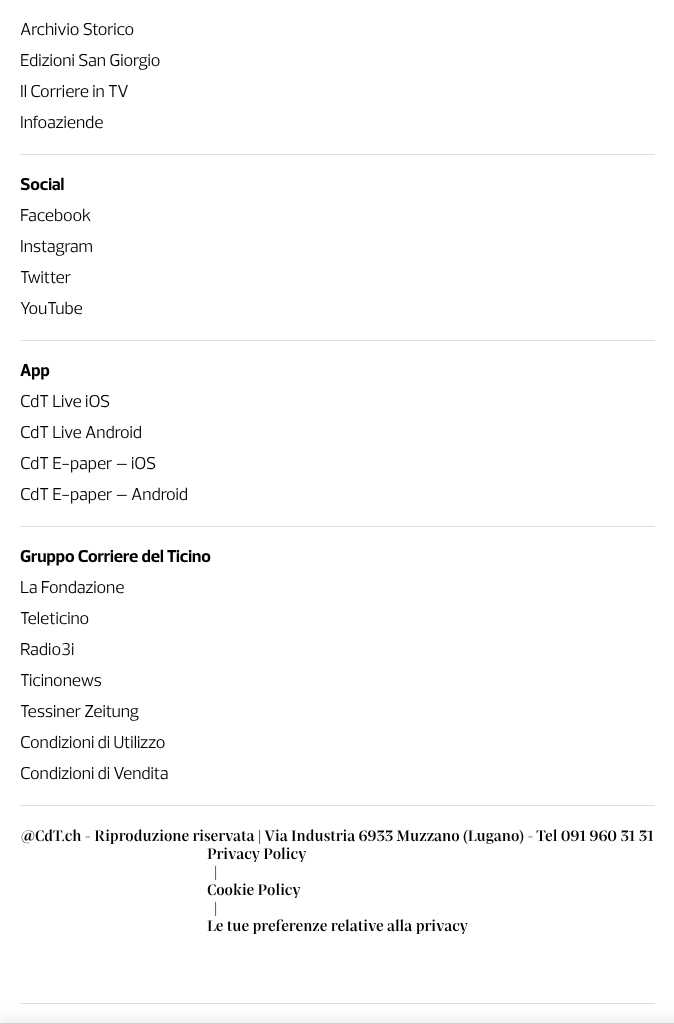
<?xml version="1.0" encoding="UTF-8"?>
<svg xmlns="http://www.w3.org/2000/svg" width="674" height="1024">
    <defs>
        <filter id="blur1" x="-50%" y="-200%" width="200%" height="500%"><feGaussianBlur stdDeviation="7"/></filter>
    </defs>
    <rect width="100%" height="100%" fill="#FFFFFF"/>
    <rect x="20" y="154" width="635" height="1" fill="#DDDFE2"/>
    <text font-family="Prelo" font-size="17.5" fill="#000000">
        <tspan x="20" y="35">Archivio Storico</tspan>
        <tspan x="20" y="66">Edizioni San Giorgio</tspan>
        <tspan x="20" y="97">Il Corriere in TV</tspan>
        <tspan x="20" y="128">Infoaziende</tspan>
    </text>
    <rect x="20" y="340" width="635" height="1" fill="#DDDFE2"/>
    <text x="20" y="190" font-family="Prelo" font-size="17.5" font-weight="700" fill="#000000">Social</text>
    <text font-family="Prelo" font-size="17.5" fill="#000000">
        <tspan x="20" y="221">Facebook</tspan>
        <tspan x="20" y="252">Instagram</tspan>
        <tspan x="20" y="283">Twitter</tspan>
        <tspan x="20" y="314">YouTube</tspan>
    </text>
    <rect x="20" y="526" width="635" height="1" fill="#DDDFE2"/>
    <text x="20" y="376" font-family="Prelo" font-size="17.5" font-weight="700" fill="#000000">App</text>
    <text font-family="Prelo" font-size="17.5" fill="#000000">
        <tspan x="20" y="407">CdT Live iOS</tspan>
        <tspan x="20" y="438">CdT Live Android</tspan>
        <tspan x="20" y="469">CdT E-paper – iOS</tspan>
        <tspan x="20" y="500">CdT E-paper – Android</tspan>
    </text>
    <rect x="20" y="805" width="635" height="1" fill="#DDDFE2"/>
    <text x="20" y="562" font-family="Prelo" font-size="17.5" font-weight="700" fill="#000000">Gruppo Corriere del Ticino</text>
    <text font-family="Prelo" font-size="17.5" fill="#000000">
        <tspan x="20" y="593">La Fondazione</tspan>
        <tspan x="20" y="624">Teleticino</tspan>
        <tspan x="20" y="655">Radio3i</tspan>
        <tspan x="20" y="686">Ticinonews</tspan>
        <tspan x="20" y="717">Tessiner Zeitung</tspan>
        <tspan x="20" y="748">Condizioni di Utilizzo</tspan>
        <tspan x="20" y="779">Condizioni di Vendita</tspan>
    </text>
    <rect x="20" y="1003" width="635" height="1" fill="#DDDFE2"/>
    <text x="21" y="841" font-family="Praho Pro" font-size="15" font-weight="500" fill="#000000">@CdT.ch - Riproduzione riservata | Via Industria 6933 Muzzano (Lugano) - Tel 091 960 31 31</text>
    <text x="207" y="859" font-family="Praho Pro" font-size="15" font-weight="500" fill="#000000">Privacy Policy</text>
    <text x="214" y="877" font-family="Praho Pro" font-size="15" font-weight="500" fill="#000000">|</text>
    <text x="207" y="895" font-family="Praho Pro" font-size="15" font-weight="500" fill="#000000">Cookie Policy</text>
    <text x="214" y="913" font-family="Praho Pro" font-size="15" font-weight="500" fill="#000000">|</text>
    <text x="207" y="931" font-family="Praho Pro" font-size="15" font-weight="500" fill="#000000">Le tue preferenze relative alla privacy</text>
    <rect x="-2" y="1020" width="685" height="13" fill="#000000" fill-opacity="0.1" filter="url(#blur1)"/>
    <rect x="0" y="1023" width="674" height="1" fill="#D1D1D1"/>
</svg>
